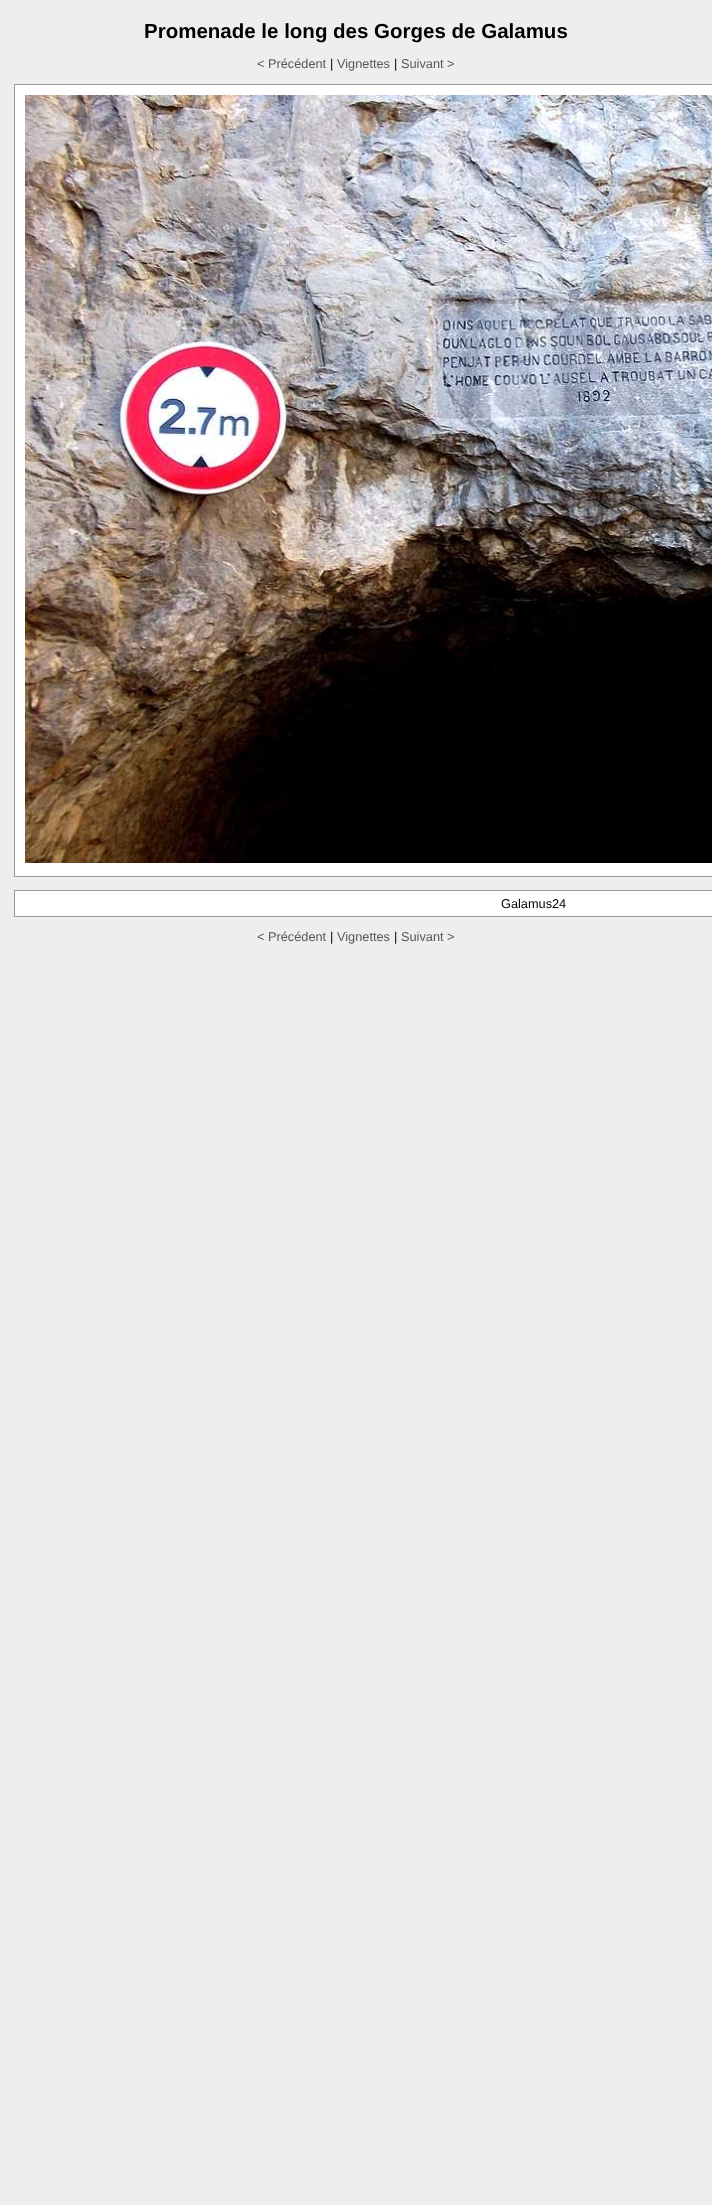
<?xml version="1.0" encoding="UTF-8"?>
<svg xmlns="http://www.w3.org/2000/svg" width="712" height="2205">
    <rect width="100%" height="100%" fill="#EEEEEE"/>
    <text x="144" y="38" font-family="Liberation Sans" font-size="20.5" font-weight="700" fill="#000000">Promenade le long des Gorges de Galamus</text>
    <text x="257" y="68" font-family="Liberation Sans" font-size="12.75" fill="#555555">&lt; Précédent</text>
    <text x="330" y="68" font-family="Liberation Sans" font-size="12.75" fill="#000000">|</text>
    <text x="337" y="68" font-family="Liberation Sans" font-size="12.75" fill="#555555">Vignettes</text>
    <text x="394" y="68" font-family="Liberation Sans" font-size="12.75" fill="#000000">|</text>
    <text x="401" y="68" font-family="Liberation Sans" font-size="12.75" fill="#555555">Suivant &gt;</text>
    <rect x="14.5" y="84.5" width="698" height="792" fill="#FFFFFF" stroke="#999999"/>
    <image x="25" y="95" width="687" height="768" href="img_01.png"/>
    <rect x="14.5" y="890.5" width="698" height="26" fill="#FFFFFF" stroke="#999999"/>
    <text x="501" y="908" font-family="Liberation Sans" font-size="12.75" fill="#000000">Galamus24</text>
    <text x="257" y="941" font-family="Liberation Sans" font-size="12.75" fill="#555555">&lt; Précédent</text>
    <text x="330" y="941" font-family="Liberation Sans" font-size="12.75" fill="#000000">|</text>
    <text x="337" y="941" font-family="Liberation Sans" font-size="12.75" fill="#555555">Vignettes</text>
    <text x="394" y="941" font-family="Liberation Sans" font-size="12.75" fill="#000000">|</text>
    <text x="401" y="941" font-family="Liberation Sans" font-size="12.75" fill="#555555">Suivant &gt;</text>
</svg>
